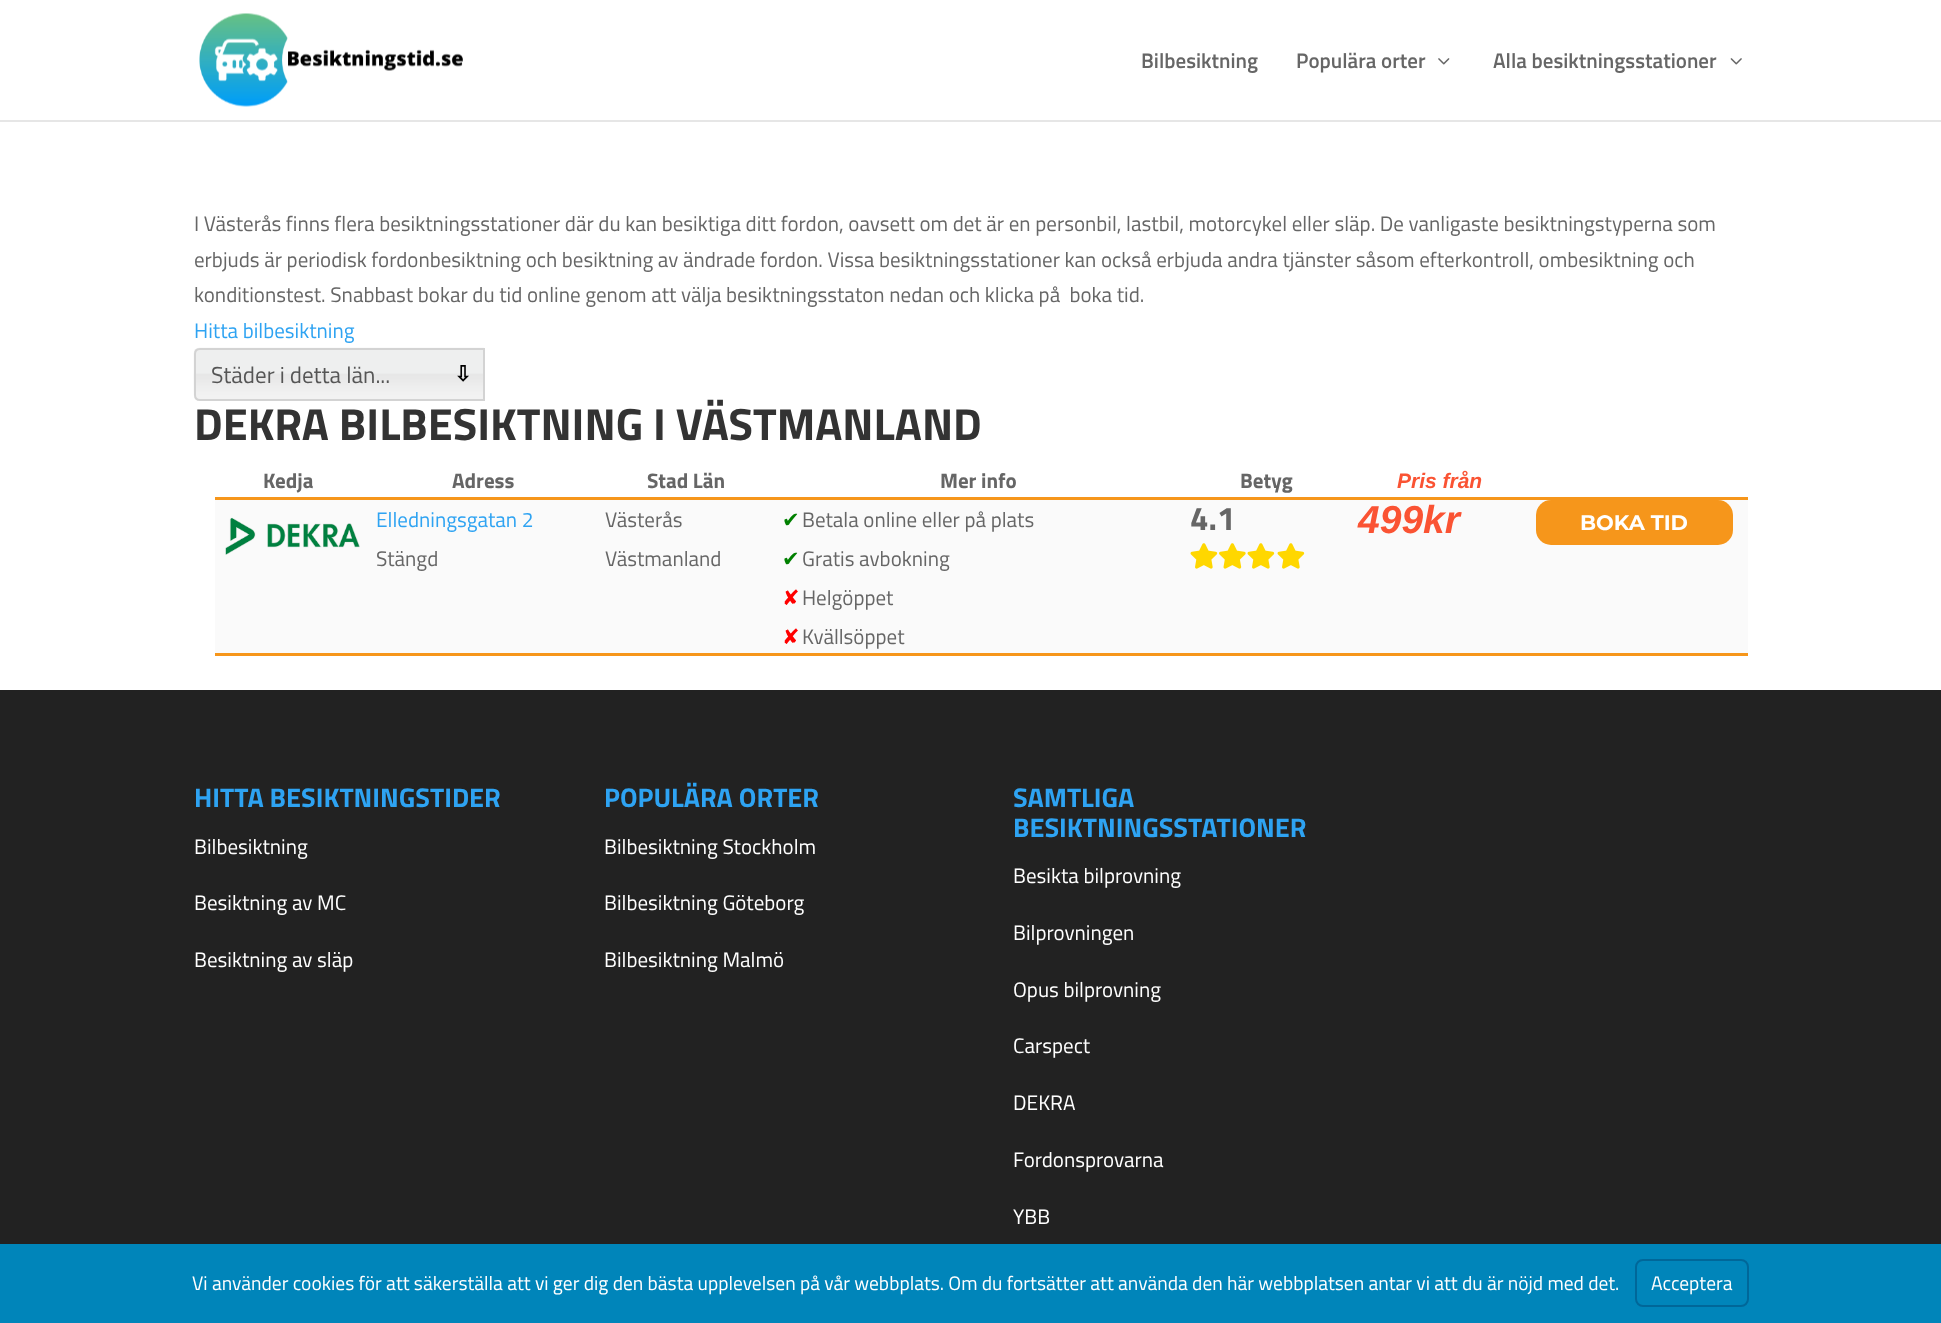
<?xml version="1.0" encoding="UTF-8"?>
<svg xmlns="http://www.w3.org/2000/svg" width="1941" height="1323">
    <rect width="100%" height="100%" fill="#FFFFFF"/>
    <rect x="0" y="120" width="1941" height="2" fill="#E6E6E6"/>
    <image x="199" y="13" width="264" height="94" href="img_01.png"/>
    <text x="1141" y="68" font-family="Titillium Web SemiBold" font-size="21" font-weight="600" fill="#666666">Bilbesiktning</text>
    <text x="1296" y="68" font-family="Titillium Web SemiBold" font-size="21" font-weight="600" fill="#666666">Populära orter</text>
    <image x="1438" y="58" width="12" height="7" href="img_02.png"/>
    <text x="1493" y="68" font-family="Titillium Web SemiBold" font-size="21" font-weight="600" fill="#666666">Alla besiktningsstationer</text>
    <image x="1730" y="58" width="12" height="7" href="img_03.png"/>
    <text font-family="Titillium Web" font-size="21" fill="#666666" xml:space="preserve"><tspan x="194" y="231">I Västerås finns flera besiktningsstationer där du kan besiktiga ditt fordon, oavsett om det är en personbil, lastbil, motorcykel eller släp. De vanligaste besiktningstyperna som</tspan><tspan x="194" y="267">erbjuds är periodisk fordonbesiktning och besiktning av ändrade fordon. Vissa besiktningsstationer kan också erbjuda andra tjänster såsom efterkontroll, ombesiktning och</tspan><tspan x="194" y="302">konditionstest. Snabbast bokar du tid online genom att välja besiktningsstaton nedan och klicka på  boka tid.</tspan></text>
    <text x="194" y="338" font-family="Titillium Web" font-size="21" fill="#2EA3F2">Hitta bilbesiktning</text>
    <image x="193" y="347" width="291" height="53" href="img_04.png"/>
    <path d="M 200 349 H 484 V 400 H 200 C 197 400 195 398 195 395 V 354 C 195 351 197 349 200 349 Z" fill="none" stroke="#D3D3D3" stroke-width="2"/>
    <text x="211" y="383" font-family="Titillium Web" font-size="23" fill="#555555">Städer i detta län...</text>
    <text x="454" y="381" font-family="DejaVu Sans" font-size="21" font-weight="700" fill="#000000">⇩</text>
    <text x="194" y="440" font-family="Titillium Web" font-size="45" font-weight="700" fill="#333333">DEKRA BILBESIKTNING I VÄSTMANLAND</text>
    <rect x="215" y="497" width="1533" height="3" fill="#F6961B"/>
    <text x="263" y="488" font-family="Titillium Web" font-size="21" font-weight="700" fill="#666666">Kedja</text>
    <text x="452" y="488" font-family="Titillium Web" font-size="21" font-weight="700" fill="#666666">Adress</text>
    <text x="647" y="488" font-family="Titillium Web" font-size="21" font-weight="700" fill="#666666">Stad Län</text>
    <text x="940" y="488" font-family="Titillium Web" font-size="21" font-weight="700" fill="#666666">Mer info</text>
    <text x="1240" y="488" font-family="Titillium Web" font-size="21" font-weight="700" fill="#666666">Betyg</text>
    <text x="1397" y="488" font-family="Liberation Sans" font-size="21" font-weight="700" font-style="italic" fill="#FA5333">Pris från</text>
    <rect x="215" y="500" width="1533" height="153" fill="#FAFAFA"/>
    <rect x="215" y="653" width="1533" height="3" fill="#F6961B"/>
    <image x="225" y="517" width="135" height="38" href="img_05.png"/>
    <text x="376" y="527" font-family="Titillium Web" font-size="21" fill="#2EA3F2">Elledningsgatan 2</text>
    <text x="376" y="566" font-family="Titillium Web" font-size="21" fill="#666666">Stängd</text>
    <text font-family="Titillium Web" font-size="21" fill="#666666">
        <tspan x="605" y="527">Västerås</tspan>
        <tspan x="605" y="566">Västmanland</tspan>
    </text>
    <text x="782" y="527" font-family="DejaVu Sans" font-size="21" fill="#008000">✔</text>
    <text x="802" y="527" font-family="Titillium Web" font-size="21" fill="#666666">Betala online eller på plats</text>
    <text x="782" y="566" font-family="DejaVu Sans" font-size="21" fill="#008000">✔</text>
    <text x="802" y="566" font-family="Titillium Web" font-size="21" fill="#666666">Gratis avbokning</text>
    <text x="782" y="605" font-family="DejaVu Sans" font-size="21" fill="#FF0000">✘</text>
    <text x="802" y="605" font-family="Titillium Web" font-size="21" fill="#666666">Helgöppet</text>
    <text x="782" y="644" font-family="DejaVu Sans" font-size="21" fill="#FF0000">✘</text>
    <text x="802" y="644" font-family="Titillium Web" font-size="21" fill="#666666">Kvällsöppet</text>
    <text x="1190" y="530" font-family="Titillium Web" font-size="33" font-weight="700" fill="#666666">4.1</text>
    <image x="1190" y="543" width="28" height="26" href="img_06.png"/>
    <image x="1219" y="543" width="27" height="26" href="img_07.png"/>
    <image x="1247" y="543" width="28" height="26" href="img_06.png"/>
    <image x="1277" y="543" width="28" height="26" href="img_06.png"/>
    <text x="1358" y="533" font-family="Liberation Sans" font-size="39" font-weight="700" font-style="italic" fill="#FA5333">499kr</text>
    <rect x="1536" y="500" width="197" height="45" rx="15" fill="#F6961B"/>
    <text x="1580" y="530" font-family="Montserrat" font-size="21" font-weight="700" fill="#FFFFFF">BOKA TID</text>
    <rect x="0" y="690" width="1941" height="554" fill="#222222"/>
    <text x="194" y="807" font-family="Titillium Web" font-size="27" font-weight="700" fill="#2EA3F2">HITTA BESIKTNINGSTIDER</text>
    <text x="194" y="854" font-family="Titillium Web" font-size="21" fill="#FFFFFF">Bilbesiktning</text>
    <text x="194" y="910" font-family="Titillium Web" font-size="21" fill="#FFFFFF">Besiktning av MC</text>
    <text x="194" y="967" font-family="Titillium Web" font-size="21" fill="#FFFFFF">Besiktning av släp</text>
    <text x="604" y="807" font-family="Titillium Web" font-size="27" font-weight="700" fill="#2EA3F2">POPULÄRA ORTER</text>
    <text x="604" y="854" font-family="Titillium Web" font-size="21" fill="#FFFFFF">Bilbesiktning Stockholm</text>
    <text x="604" y="910" font-family="Titillium Web" font-size="21" fill="#FFFFFF">Bilbesiktning Göteborg</text>
    <text x="604" y="967" font-family="Titillium Web" font-size="21" fill="#FFFFFF">Bilbesiktning Malmö</text>
    <text font-family="Titillium Web" font-size="27" font-weight="700" fill="#2EA3F2">
        <tspan x="1013" y="807">SAMTLIGA</tspan>
        <tspan x="1013" y="837">BESIKTNINGSSTATIONER</tspan>
    </text>
    <text x="1013" y="883" font-family="Titillium Web" font-size="21" fill="#FFFFFF">Besikta bilprovning</text>
    <text x="1013" y="940" font-family="Titillium Web" font-size="21" fill="#FFFFFF">Bilprovningen</text>
    <text x="1013" y="997" font-family="Titillium Web" font-size="21" fill="#FFFFFF">Opus bilprovning</text>
    <text x="1013" y="1053" font-family="Titillium Web" font-size="21" fill="#FFFFFF">Carspect</text>
    <text x="1013" y="1110" font-family="Titillium Web" font-size="21" fill="#FFFFFF">DEKRA</text>
    <text x="1013" y="1167" font-family="Titillium Web" font-size="21" fill="#FFFFFF">Fordonsprovarna</text>
    <text x="1013" y="1224" font-family="Titillium Web" font-size="21" fill="#FFFFFF">YBB</text>
    <rect x="0" y="1244" width="1941" height="79" fill="#0085BA"/>
    <text x="192" y="1290" font-family="Titillium Web" font-size="19.5" fill="#FFFFFF">Vi använder cookies för att säkerställa att vi ger dig den bästa upplevelsen på vår webbplats. Om du fortsätter att använda den här webbplatsen antar vi att du är nöjd med det.</text>
    <rect x="1636" y="1260" width="112" height="46" rx="7" fill="none" stroke="#006799" stroke-width="2"/>
    <text x="1651" y="1290" font-family="Titillium Web" font-size="19.5" fill="#FFFFFF">Acceptera</text>
</svg>
